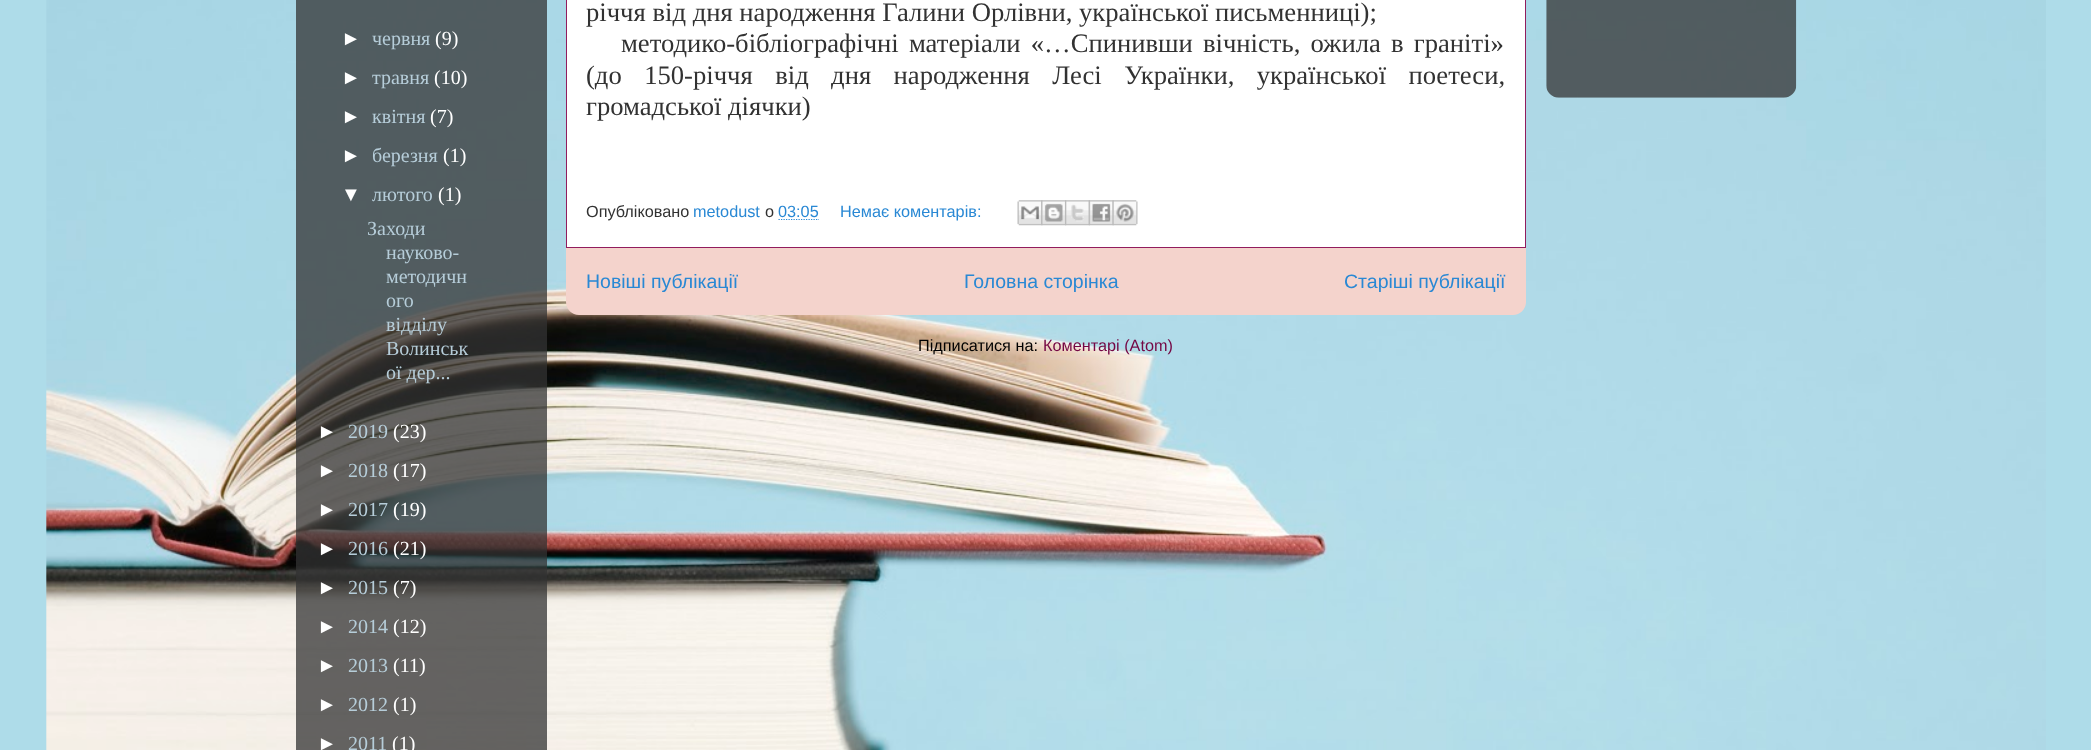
<?xml version="1.0" encoding="UTF-8"?>
<svg xmlns="http://www.w3.org/2000/svg" width="2091" height="750">
    <rect width="100%" height="100%" fill="#AEDCE9"/>
    <image x="46" y="0" width="2000" height="750" href="img_01.png"/>
    <rect x="296" y="0" width="251" height="750" fill="#333333" fill-opacity="0.75"/>
    <text x="341" y="45" font-family="Liberation Sans" font-size="20" fill="#FFFFFF">►</text>
    <text x="372" y="45" font-family="Liberation Serif" font-size="20" fill="#B6CDD9">червня</text>
    <text x="435" y="45" font-family="Liberation Serif" font-size="20" fill="#FFFFFF">(9)</text>
    <text x="341" y="84" font-family="Liberation Sans" font-size="20" fill="#FFFFFF">►</text>
    <text x="372" y="84" font-family="Liberation Serif" font-size="20" fill="#B6CDD9">травня</text>
    <text x="434" y="84" font-family="Liberation Serif" font-size="20" fill="#FFFFFF">(10)</text>
    <text x="341" y="123" font-family="Liberation Sans" font-size="20" fill="#FFFFFF">►</text>
    <text x="372" y="123" font-family="Liberation Serif" font-size="20" fill="#B6CDD9">квітня</text>
    <text x="430" y="123" font-family="Liberation Serif" font-size="20" fill="#FFFFFF">(7)</text>
    <text x="341" y="162" font-family="Liberation Sans" font-size="20" fill="#FFFFFF">►</text>
    <text x="372" y="162" font-family="Liberation Serif" font-size="20" fill="#B6CDD9">березня</text>
    <text x="443" y="162" font-family="Liberation Serif" font-size="20" fill="#FFFFFF">(1)</text>
    <text x="341" y="201" font-family="Liberation Sans" font-size="20" fill="#FFFFFF">▼</text>
    <text x="372" y="201" font-family="Liberation Serif" font-size="20" fill="#B6CDD9">лютого</text>
    <text x="438" y="201" font-family="Liberation Serif" font-size="20" fill="#FFFFFF">(1)</text>
    <text x="367" y="235" font-family="Liberation Serif" font-size="20" fill="#B6CDD9">Заходи</text>
    <text font-family="Liberation Serif" font-size="20" fill="#B6CDD9">
        <tspan x="386" y="259">науково-</tspan>
        <tspan x="386" y="283">методичн</tspan>
        <tspan x="386" y="307">ого</tspan>
        <tspan x="386" y="331">відділу</tspan>
        <tspan x="386" y="355">Волинськ</tspan>
        <tspan x="386" y="379">ої дер...</tspan>
    </text>
    <text x="317" y="438" font-family="Liberation Sans" font-size="20" fill="#FFFFFF">►</text>
    <text x="348" y="438" font-family="Liberation Serif" font-size="20" fill="#B6CDD9">2019</text>
    <text x="393" y="438" font-family="Liberation Serif" font-size="20" fill="#FFFFFF">(23)</text>
    <text x="317" y="477" font-family="Liberation Sans" font-size="20" fill="#FFFFFF">►</text>
    <text x="348" y="477" font-family="Liberation Serif" font-size="20" fill="#B6CDD9">2018</text>
    <text x="393" y="477" font-family="Liberation Serif" font-size="20" fill="#FFFFFF">(17)</text>
    <text x="317" y="516" font-family="Liberation Sans" font-size="20" fill="#FFFFFF">►</text>
    <text x="348" y="516" font-family="Liberation Serif" font-size="20" fill="#B6CDD9">2017</text>
    <text x="393" y="516" font-family="Liberation Serif" font-size="20" fill="#FFFFFF">(19)</text>
    <text x="317" y="555" font-family="Liberation Sans" font-size="20" fill="#FFFFFF">►</text>
    <text x="348" y="555" font-family="Liberation Serif" font-size="20" fill="#B6CDD9">2016</text>
    <text x="393" y="555" font-family="Liberation Serif" font-size="20" fill="#FFFFFF">(21)</text>
    <text x="317" y="594" font-family="Liberation Sans" font-size="20" fill="#FFFFFF">►</text>
    <text x="348" y="594" font-family="Liberation Serif" font-size="20" fill="#B6CDD9">2015</text>
    <text x="393" y="594" font-family="Liberation Serif" font-size="20" fill="#FFFFFF">(7)</text>
    <text x="317" y="633" font-family="Liberation Sans" font-size="20" fill="#FFFFFF">►</text>
    <text x="348" y="633" font-family="Liberation Serif" font-size="20" fill="#B6CDD9">2014</text>
    <text x="393" y="633" font-family="Liberation Serif" font-size="20" fill="#FFFFFF">(12)</text>
    <text x="317" y="672" font-family="Liberation Sans" font-size="20" fill="#FFFFFF">►</text>
    <text x="348" y="672" font-family="Liberation Serif" font-size="20" fill="#B6CDD9">2013</text>
    <text x="393" y="672" font-family="Liberation Serif" font-size="20" fill="#FFFFFF">(11)</text>
    <text x="317" y="711" font-family="Liberation Sans" font-size="20" fill="#FFFFFF">►</text>
    <text x="348" y="711" font-family="Liberation Serif" font-size="20" fill="#B6CDD9">2012</text>
    <text x="393" y="711" font-family="Liberation Serif" font-size="20" fill="#FFFFFF">(1)</text>
    <text x="317" y="750" font-family="Liberation Sans" font-size="20" fill="#FFFFFF">►</text>
    <text x="348" y="750" font-family="Liberation Serif" font-size="20" fill="#B6CDD9">2011</text>
    <text x="392" y="750" font-family="Liberation Serif" font-size="20" fill="#FFFFFF">(1)</text>
    <rect x="566.5" y="-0.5" width="959" height="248" fill="#FFFFFF" stroke="#921C5D"/>
    <text x="586" y="21" font-family="Liberation Serif" font-size="26.65" fill="#323232">річчя від дня народження Галини Орлівни, української письменниці);</text>
    <text x="621" y="52" word-spacing="3.5" font-family="Liberation Serif" font-size="26.65" fill="#323232">методико-бібліографічні матеріали «…Спинивши вічність, ожила в граніті»</text>
    <text font-family="Liberation Serif" font-size="26.65" fill="#323232">
        <tspan x="586" y="84" word-spacing="15.75">(до 150-річчя від дня народження Лесі Українки, української поетеси,</tspan>
        <tspan x="586" y="115">громадської діячки)</tspan>
    </text>
    <text x="586" y="217" font-family="Liberation Sans" font-size="16.25" fill="#323232">Опубліковано</text>
    <text x="693" y="217" font-family="Liberation Sans" font-size="16.25" fill="#2988D4">metodust</text>
    <text x="765" y="217" font-family="Liberation Sans" font-size="16.25" fill="#323232">о</text>
    <text x="778" y="217" font-family="Liberation Sans" font-size="16.25" fill="#2988D4">03:05</text>
    <path d="M 778.5 219.5 H 819" fill="none" stroke="#2988D4" stroke-width="1.2" stroke-dasharray="1.25 1.25"/>
    <text x="840" y="217" font-family="Liberation Sans" font-size="16.25" fill="#2988D4">Немає коментарів:</text>
    <image x="1017" y="200" width="26" height="26" href="img_02.png"/>
    <image x="1041" y="200" width="26" height="26" href="img_03.png"/>
    <image x="1065" y="200" width="25" height="26" href="img_04.png"/>
    <image x="1088" y="200" width="26" height="26" href="img_05.png"/>
    <image x="1112" y="200" width="26" height="26" href="img_06.png"/>
    <path d="M 566 248 H 1526 V 302 C 1526 309 1520 315 1513 315 H 579 C 572 315 566 309 566 302 Z" fill="#F4D3CC"/>
    <text x="586" y="288" font-family="Liberation Sans" font-size="19.5" fill="#2988D4">Новіші публікації</text>
    <text x="964" y="288" font-family="Liberation Sans" font-size="19.5" fill="#2988D4">Головна сторінка</text>
    <text x="1344" y="288" font-family="Liberation Sans" font-size="19.5" fill="#2988D4">Старіші публікації</text>
    <text x="918" y="351" font-family="Liberation Sans" font-size="16.25" fill="#000000">Підписатися на:</text>
    <text x="1043" y="351" font-family="Liberation Sans" font-size="16.25" fill="#740744">Коментарі (Atom)</text>
    <image x="1546" y="0" width="251" height="98" href="img_07.png"/>
</svg>
